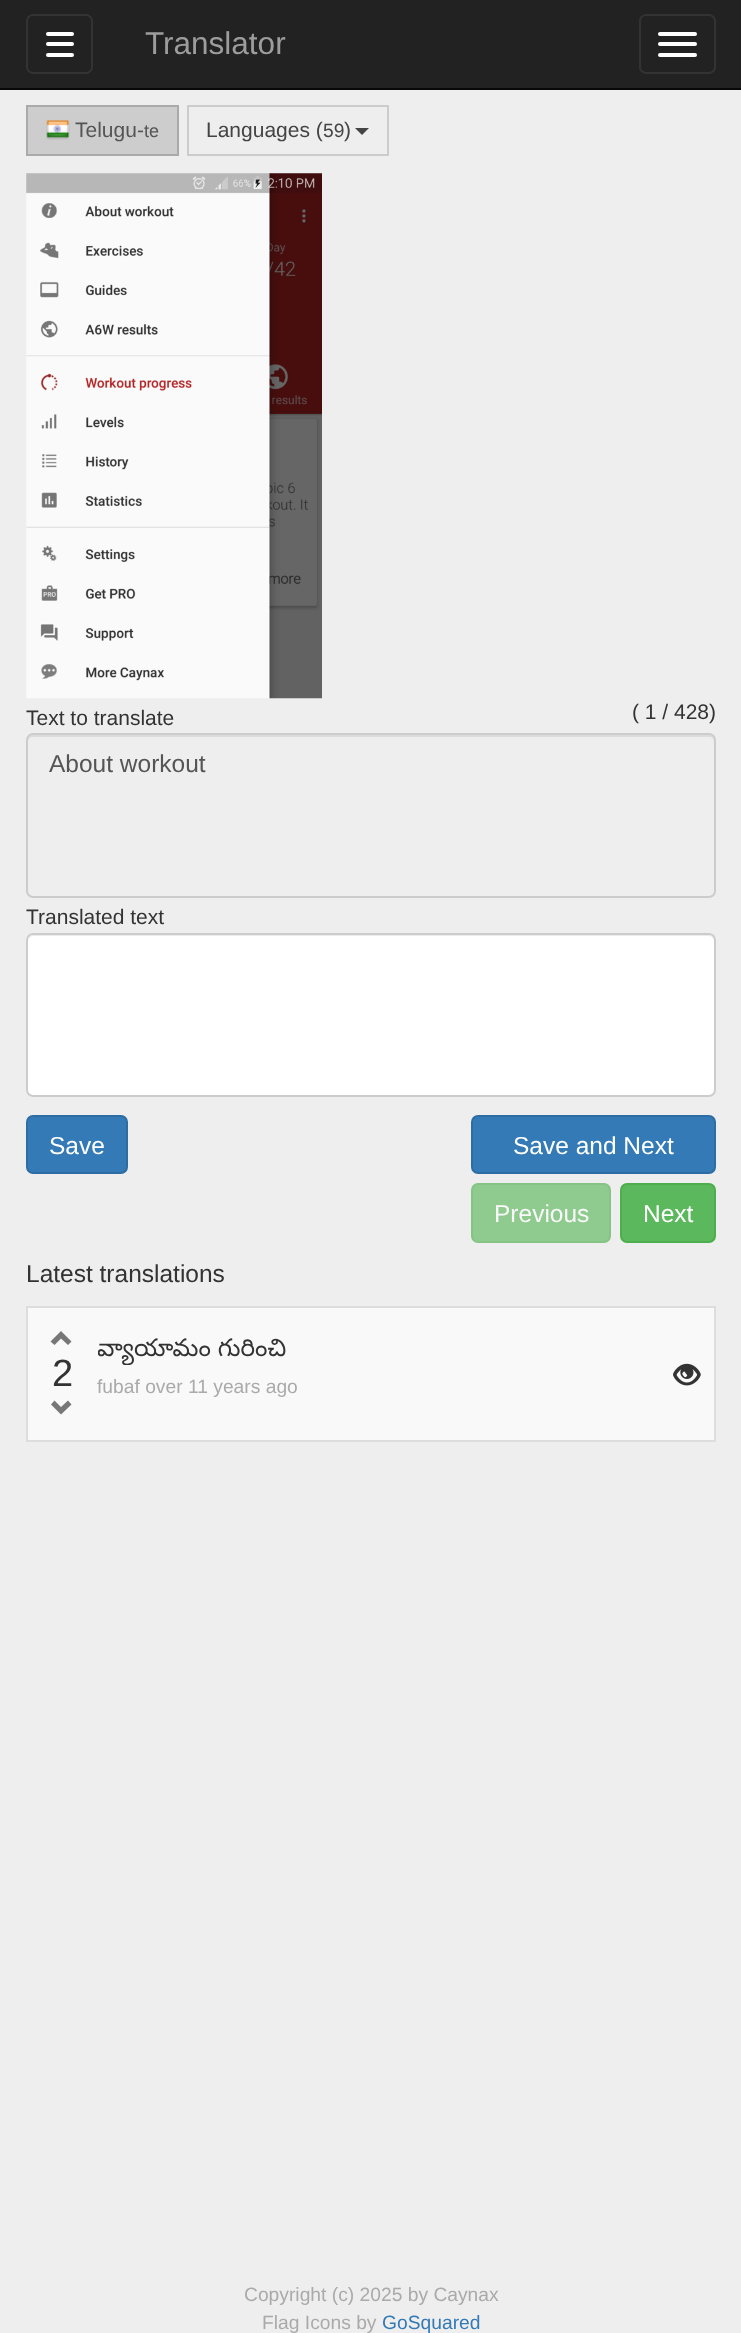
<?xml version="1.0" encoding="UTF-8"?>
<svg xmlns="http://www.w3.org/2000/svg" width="741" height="2333">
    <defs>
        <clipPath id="clip1"><rect x="98" y="1330" width="548" height="35"/></clipPath>
    </defs>
    <rect width="100%" height="100%" fill="#EEEEEE"/>
    <rect x="0" y="0" width="741" height="88" fill="#222222"/>
    <rect x="0" y="88" width="741" height="2" fill="#090909"/>
    <rect x="27" y="15" width="65" height="58" rx="6" fill="none" stroke="#333333" stroke-width="2"/>
    <rect x="46" y="32" width="28" height="4" rx="2" fill="#FFFFFF"/>
    <rect x="46" y="42" width="28" height="4" rx="2" fill="#FFFFFF"/>
    <rect x="46" y="53" width="28" height="4" rx="2" fill="#FFFFFF"/>
    <text x="145" y="54" font-family="Liberation Sans" font-size="31.5" fill="#9D9D9D">Translator</text>
    <rect x="640" y="15" width="75" height="58" rx="6" fill="none" stroke="#333333" stroke-width="2"/>
    <rect x="658" y="32" width="39" height="4" rx="2" fill="#FFFFFF"/>
    <rect x="658" y="42" width="39" height="4" rx="2" fill="#FFFFFF"/>
    <rect x="658" y="53" width="39" height="4" rx="2" fill="#FFFFFF"/>
    <rect x="27" y="106" width="151" height="49" fill="#CDCDCD" stroke="#AAAAAA" stroke-width="2"/>
    <image x="46" y="120" width="24" height="20" href="img_01.png"/>
    <text x="75" y="137" font-family="Liberation Sans" font-size="21" fill="#555555">Telugu-</text>
    <text x="144" y="137" font-family="Liberation Sans" font-size="18" fill="#555555">te</text>
    <rect x="188" y="106" width="200" height="49" fill="none" stroke="#CCCCCC" stroke-width="2"/>
    <text x="206" y="137" font-family="Liberation Sans" font-size="21" fill="#444444">Languages (</text>
    <text x="323" y="137" font-family="Liberation Sans" font-size="19.25" fill="#444444">59</text>
    <text x="344" y="137" font-family="Liberation Sans" font-size="21" fill="#444444">)</text>
    <path d="M 355 128 H 369 L 362 135 Z" fill="#444444"/>
    <image x="26" y="173" width="296" height="526" href="img_02.png"/>
    <text x="26" y="725" font-family="Liberation Sans" font-size="21" fill="#333333">Text to translate</text>
    <text x="632" y="719" font-family="Liberation Sans" font-size="21" fill="#333333">( 1 / 428)</text>
    <path d="M 33 737 H 709 C 712 737 714 739 714 742 V 740 C 714 737 712 735 709 735 H 33 C 30 735 28 737 28 740 V 742 C 28 739 30 737 33 737 Z" fill="#DCDCDC"/>
    <rect x="27" y="734" width="688" height="163" rx="6" fill="none" stroke="#CCCCCC" stroke-width="2"/>
    <text x="49" y="772" font-family="Liberation Sans" font-size="24.5" fill="#555555">About workout</text>
    <text x="26" y="924" font-family="Liberation Sans" font-size="21" fill="#333333">Translated text</text>
    <rect x="26" y="933" width="690" height="164" rx="7" fill="#FFFFFF"/>
    <path d="M 33 936 H 709 C 712 936 714 939 714 942 V 940 C 714 937 712 935 709 935 H 33 C 30 935 28 937 28 940 V 942 C 28 939 30 936 33 936 Z" fill="#ECECEC"/>
    <rect x="27" y="934" width="688" height="162" rx="6" fill="none" stroke="#CCCCCC" stroke-width="2"/>
    <rect x="27" y="1116" width="100" height="57" rx="6" fill="#337AB7" stroke="#2E6DA4" stroke-width="2"/>
    <text x="49" y="1154" font-family="Liberation Sans" font-size="24.5" fill="#FFFFFF">Save</text>
    <rect x="472" y="1116" width="243" height="57" rx="6" fill="#337AB7" stroke="#2E6DA4" stroke-width="2"/>
    <text x="513" y="1154" font-family="Liberation Sans" font-size="24.5" fill="#FFFFFF">Save and Next</text>
    <rect x="472" y="1184" width="138" height="58" rx="6" fill="#8FCB8F" stroke="#85C485" stroke-width="2"/>
    <text x="494" y="1222" font-family="Liberation Sans" font-size="24.5" fill="#F9F9F9">Previous</text>
    <rect x="621" y="1184" width="94" height="58" rx="6" fill="#5CB85C" stroke="#4CAE4C" stroke-width="2"/>
    <text x="643" y="1222" font-family="Liberation Sans" font-size="24.5" fill="#FFFFFF">Next</text>
    <text x="26" y="1282" font-family="Liberation Sans" font-size="24.5" fill="#333333">Latest translations</text>
    <rect x="26" y="1306" width="690" height="2" fill="#DDDDDD"/>
    <rect x="714" y="1306" width="2" height="136" fill="#DDDDDD"/>
    <rect x="26" y="1440" width="690" height="2" fill="#DDDDDD"/>
    <rect x="26" y="1306" width="2" height="136" fill="#DDDDDD"/>
    <rect x="28" y="1308" width="686" height="132" fill="#F9F9F9"/>
    <path d="M 71.5 1341.5 L 68 1345 L 61 1338.5 L 54.5 1345 L 50.5 1341.5 L 61 1331 Z" fill="#777777"/>
    <text x="52" y="1386" font-family="Liberation Sans" font-size="38" fill="#333333">2</text>
    <path d="M 71.5 1404.5 L 61 1414.5 L 51 1404.5 L 54.5 1400.5 L 61 1407 L 68 1400.5 Z" fill="#777777"/>
    <g clip-path="url(#clip1)">
        <text x="97" y="1356" font-family="Noto Sans Telugu" font-size="24.5" fill="#333333">వ్యాయామం గురించి</text>
    </g>
    <text x="97" y="1393" font-family="Liberation Sans" font-size="19.25" fill="#AAAAAA">fubaf over 11 years ago</text>
    <image x="673" y="1363" width="28" height="23" href="img_03.png"/>
    <text x="244" y="2301" font-family="Liberation Sans" font-size="19.25" fill="#AAAAAA">Copyright (c) 2025 by Caynax</text>
    <text x="262" y="2329" font-family="Liberation Sans" font-size="19.25" fill="#AAAAAA">Flag Icons by</text>
    <text x="382" y="2329" font-family="Liberation Sans" font-size="19.25" fill="#337AB7">GoSquared</text>
</svg>
